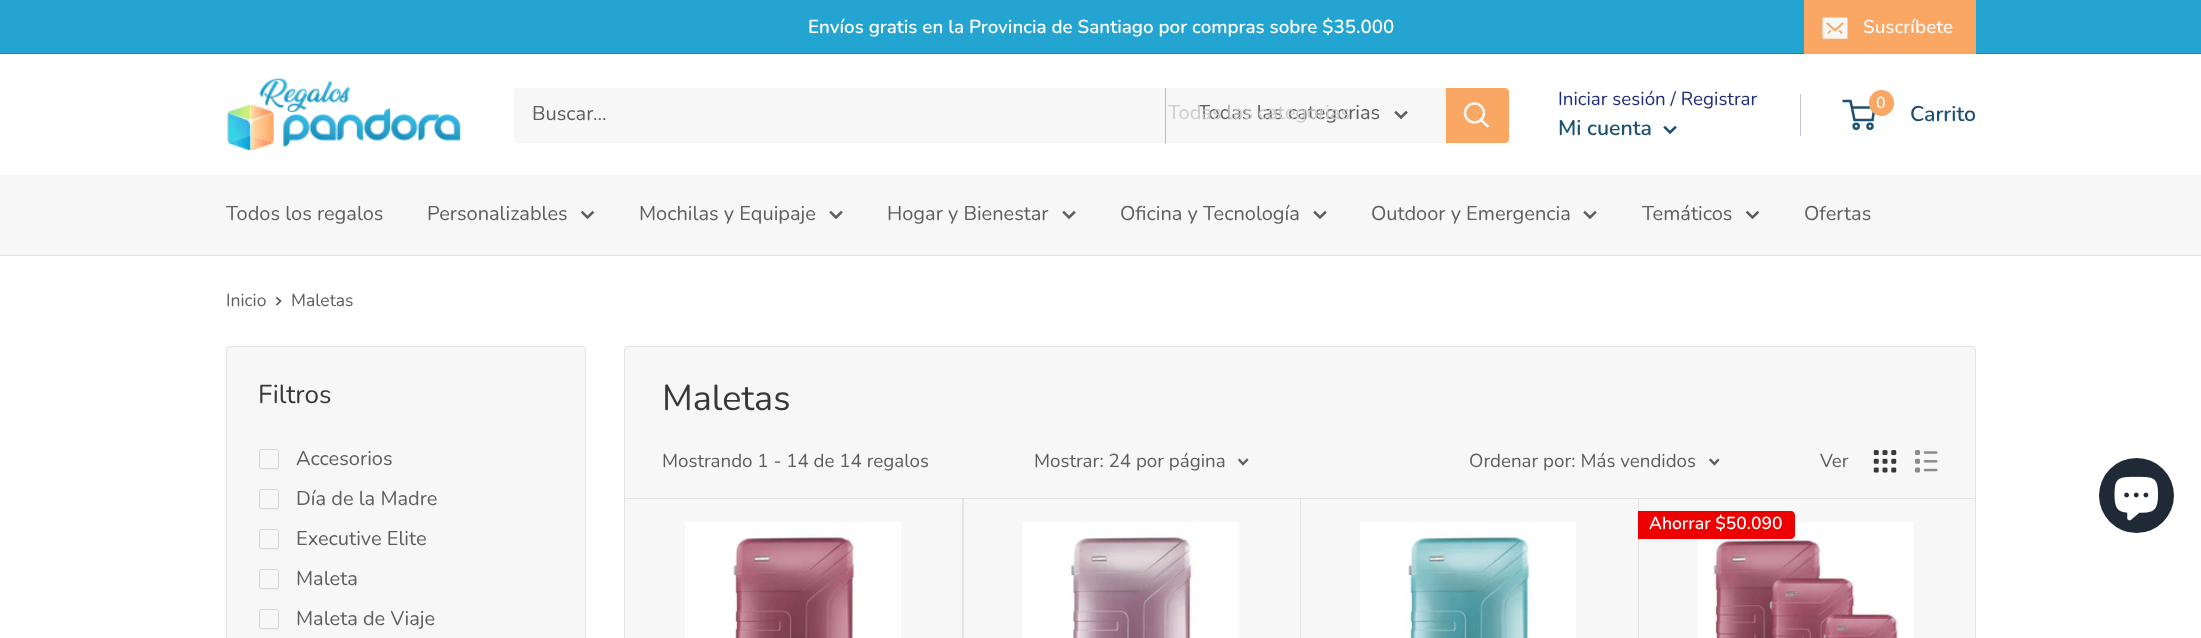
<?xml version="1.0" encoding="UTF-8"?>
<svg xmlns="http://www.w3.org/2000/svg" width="2201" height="638">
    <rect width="100%" height="100%" fill="#FFFFFF"/>
    <rect x="0" y="0" width="2201" height="53" fill="#24A4D1"/>
    <rect x="0" y="53" width="2201" height="1" fill="#2280B8"/>
    <text x="808" y="33" font-family="Nunito" font-size="18.75" font-weight="600" fill="#FFFFFF">Envíos gratis en la Provincia de Santiago por compras sobre $35.000</text>
    <rect x="1804" y="0" width="172" height="54" fill="#FAA763"/>
    <image x="1822" y="17" width="26" height="22" href="img_01.png"/>
    <text x="1863" y="33" font-family="Nunito" font-size="18.75" font-weight="600" fill="#F7F7F7">Suscríbete</text>
    <image x="227" y="78" width="234" height="72" href="img_02.png"/>
    <rect x="514" y="88" width="995" height="55" rx="4" fill="#F7F7F7"/>
    <text x="532" y="120" font-family="Nunito" font-size="20" fill="#5C5E5F">Buscar...</text>
    <rect x="1165" y="88" width="1" height="55" fill="#B6BAD2"/>
    <text x="1198" y="119" font-family="Nunito" font-size="20" fill="#5C5E5F">Todas las categorias</text>
    <text x="1168" y="119" font-family="Nunito" font-size="20" fill="#CBCCCC">Todas las categorias</text>
    <path d="M 1406 112.5 L 1401 117.5 L 1396 112.5" fill="none" stroke="#5C5E5F" stroke-width="2.5" stroke-linecap="square"/>
    <path d="M 1446 88 H 1505 C 1507 88 1509 90 1509 92 V 139 C 1509 141 1507 143 1505 143 H 1446 Z" fill="#FAA763"/>
    <path d="M 1487.5 126 L 1481 120" fill="none" stroke="#F7F7F7" stroke-width="2.5" stroke-linecap="square"/>
    <circle cx="1474.5" cy="113" r="9.5" fill="none" stroke="#F7F7F7" stroke-width="2.5"/>
    <text x="1558" y="105" font-family="Nunito" font-size="18.75" fill="#1E2D7D">Iniciar sesión / Registrar</text>
    <rect x="1800" y="94" width="1" height="42" fill="#BCC0D8"/>
    <text x="1558" y="135" font-family="Nunito" font-size="21.25" font-weight="600" fill="#1C5173">Mi cuenta</text>
    <path d="M 1675 127.5 L 1670 132.5 L 1665 127.5" fill="none" stroke="#1C5173" stroke-width="2.5" stroke-linecap="square"/>
    <circle cx="1856.2" cy="126.2" r="2.5" fill="none" stroke="#1C5173" stroke-width="2.5"/>
    <circle cx="1870" cy="126.2" r="2.5" fill="none" stroke="#1C5173" stroke-width="2.5"/>
    <path d="M 1851.5 107.5 H 1874.5 L 1872.5 120 H 1854.5 L 1850.5 101 H 1842.5" fill="none" stroke="#1C5173" stroke-width="2.5"/>
    <rect x="1869" y="90" width="25" height="26" rx="12.5" fill="#FAA763"/>
    <text x="1876" y="108" font-family="Nunito" font-size="16" font-weight="600" fill="#F7F7F7">0</text>
    <text x="1910" y="121" font-family="Nunito" font-size="21.25" font-weight="600" fill="#1C5173">Carrito</text>
    <rect x="0" y="175" width="2201" height="80" fill="#F7F7F7"/>
    <rect x="0" y="255" width="2201" height="1" fill="#E1E3E4"/>
    <text x="226" y="220" font-family="Nunito" font-size="20" fill="#5C5E5F">Todos los regalos</text>
    <text x="427" y="220" font-family="Nunito" font-size="20" fill="#5C5E5F">Personalizables</text>
    <path d="M 592.5 212.5 L 587.5 217.5 L 582.5 212.5" fill="none" stroke="#5C5E5F" stroke-width="2.5" stroke-linecap="square"/>
    <text x="639" y="220" font-family="Nunito" font-size="20" fill="#5C5E5F">Mochilas y Equipaje</text>
    <path d="M 841 212.5 L 836 217.5 L 831 212.5" fill="none" stroke="#5C5E5F" stroke-width="2.5" stroke-linecap="square"/>
    <text x="887" y="220" font-family="Nunito" font-size="20" fill="#5C5E5F">Hogar y Bienestar</text>
    <path d="M 1074 212.5 L 1069 217.5 L 1064 212.5" fill="none" stroke="#5C5E5F" stroke-width="2.5" stroke-linecap="square"/>
    <text x="1120" y="220" font-family="Nunito" font-size="20" fill="#5C5E5F">Oficina y Tecnología</text>
    <path d="M 1325 212.5 L 1320 217.5 L 1315 212.5" fill="none" stroke="#5C5E5F" stroke-width="2.5" stroke-linecap="square"/>
    <text x="1371" y="220" font-family="Nunito" font-size="20" fill="#5C5E5F">Outdoor y Emergencia</text>
    <path d="M 1595 212.5 L 1590 217.5 L 1585 212.5" fill="none" stroke="#5C5E5F" stroke-width="2.5" stroke-linecap="square"/>
    <text x="1642" y="220" font-family="Nunito" font-size="20" fill="#5C5E5F">Temáticos</text>
    <path d="M 1757.5 212.5 L 1752.5 217.5 L 1747.5 212.5" fill="none" stroke="#5C5E5F" stroke-width="2.5" stroke-linecap="square"/>
    <text x="1804" y="220" font-family="Nunito" font-size="20" fill="#5C5E5F">Ofertas</text>
    <text x="226" y="306" font-family="Nunito" font-size="17.5" fill="#5C5E5F">Inicio</text>
    <path d="M 277 298 L 280.5 301 L 277 304.5" fill="none" stroke="#5C5E5F" stroke-width="1.7" stroke-linecap="square"/>
    <text x="291" y="306" font-family="Nunito" font-size="17.5" fill="#5C5E5F">Maletas</text>
    <rect x="226.5" y="346.5" width="359" height="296" rx="3.5" fill="#F7F7F7" stroke="#E1E3E4"/>
    <text x="258" y="403" font-family="Nunito" font-size="26" fill="#383839">Filtros</text>
    <path d="M 259 467.5 C 259 470.5 262 470 264 470 H 271.5 C 281 470 279 470 279 460 C 279 458 279.5 453 279 451.5 V 466 C 279 467.5 277.5 469 276 469 H 261 C 260.5 469 259.5 468 259 467.5 Z" fill="#EEEFEF"/>
    <rect x="259.5" y="449.5" width="19" height="19" rx="2" fill="#F7F7F7" stroke="#D4D6D8"/>
    <text x="296" y="465" font-family="Nunito" font-size="20" fill="#5C5E5F">Accesorios</text>
    <path d="M 259 507.5 C 259 510.5 262 510 264 510 H 271.5 C 281 510 279 510 279 500 C 279 498 279.5 493 279 491.5 V 506 C 279 507.5 277.5 509 276 509 H 261 C 260.5 509 259.5 508 259 507.5 Z" fill="#EEEFEF"/>
    <rect x="259.5" y="489.5" width="19" height="19" rx="2" fill="#F7F7F7" stroke="#D4D6D8"/>
    <text x="296" y="505" font-family="Nunito" font-size="20" fill="#5C5E5F">Día de la Madre</text>
    <path d="M 259 547.5 C 259 550.5 262 550 264 550 H 271.5 C 281 550 279 550 279 540 C 279 538 279.5 533 279 531.5 V 546 C 279 547.5 277.5 549 276 549 H 261 C 260.5 549 259.5 548 259 547.5 Z" fill="#EEEFEF"/>
    <rect x="259.5" y="529.5" width="19" height="19" rx="2" fill="#F7F7F7" stroke="#D4D6D8"/>
    <text x="296" y="545" font-family="Nunito" font-size="20" fill="#5C5E5F">Executive Elite</text>
    <path d="M 259 587.5 C 259 590.5 262 590 264 590 H 271.5 C 281 590 279 590 279 580 C 279 578 279.5 573 279 571.5 V 586 C 279 587.5 277.5 589 276 589 H 261 C 260.5 589 259.5 588 259 587.5 Z" fill="#EEEFEF"/>
    <rect x="259.5" y="569.5" width="19" height="19" rx="2" fill="#F7F7F7" stroke="#D4D6D8"/>
    <text x="296" y="585" font-family="Nunito" font-size="20" fill="#5C5E5F">Maleta</text>
    <path d="M 259 627.5 C 259 630.5 262 630 264 630 H 271.5 C 281 630 279 630 279 620 C 279 618 279.5 613 279 611.5 V 626 C 279 627.5 277.5 629 276 629 H 261 C 260.5 629 259.5 628 259 627.5 Z" fill="#EEEFEF"/>
    <rect x="259.5" y="609.5" width="19" height="19" rx="2" fill="#F7F7F7" stroke="#D4D6D8"/>
    <text x="296" y="625" font-family="Nunito" font-size="20" fill="#5C5E5F">Maleta de Viaje</text>
    <rect x="624.5" y="346.5" width="1351" height="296" rx="3.5" fill="#F7F7F7" stroke="#E1E3E4"/>
    <text x="662" y="410" font-family="Nunito" font-size="36" fill="#383839">Maletas</text>
    <rect x="962" y="498" width="2" height="140" fill="#E1E3E4"/>
    <rect x="1300" y="498" width="1" height="140" fill="#E1E3E4"/>
    <rect x="1638" y="498" width="1" height="140" fill="#E1E3E4"/>
    <rect x="625" y="498" width="1350" height="1" fill="#E1E3E4"/>
    <text x="662" y="467" font-family="Nunito" font-size="18.75" fill="#5C5E5F">Mostrando 1 - 14 de 14 regalos</text>
    <text x="1034" y="467" font-family="Nunito" font-size="18.75" fill="#5C5E5F">Mostrar: 24 por página</text>
    <path d="M 1247 460 L 1243 464 L 1239.5 460" fill="none" stroke="#5C5E5F" stroke-width="2.3" stroke-linecap="square"/>
    <text x="1469" y="467" font-family="Nunito" font-size="18.75" fill="#5C5E5F">Ordenar por: Más vendidos</text>
    <path d="M 1718 460 L 1714.5 464 L 1710.5 460" fill="none" stroke="#5C5E5F" stroke-width="2.3" stroke-linecap="square"/>
    <text x="1820" y="467" font-family="Nunito" font-size="18.75" fill="#5C5E5F">Ver</text>
    <image x="1873" y="450" width="24" height="23" href="img_03.png"/>
    <image x="1915" y="450" width="23" height="23" href="img_04.png"/>
    <image x="685" y="522" width="216" height="116" href="img_05.png"/>
    <image x="1022" y="522" width="217" height="116" href="img_06.png"/>
    <image x="1360" y="522" width="216" height="116" href="img_07.png"/>
    <image x="1697" y="522" width="217" height="116" href="img_08.png"/>
    <path d="M 1638 511 H 1791 C 1793 511 1795 513 1795 515 V 535 C 1795 537 1793 539 1791 539 H 1638 Z" fill="#EE0000"/>
    <text x="1649" y="529" font-family="Nunito" font-size="17.5" font-weight="600" fill="#FFFFFF">Ahorrar $50.090</text>
    <circle cx="2136.5" cy="495.5" r="37.5" fill="#202A36"/>
    <image x="2114" y="476" width="44" height="45" href="img_09.png"/>
</svg>
